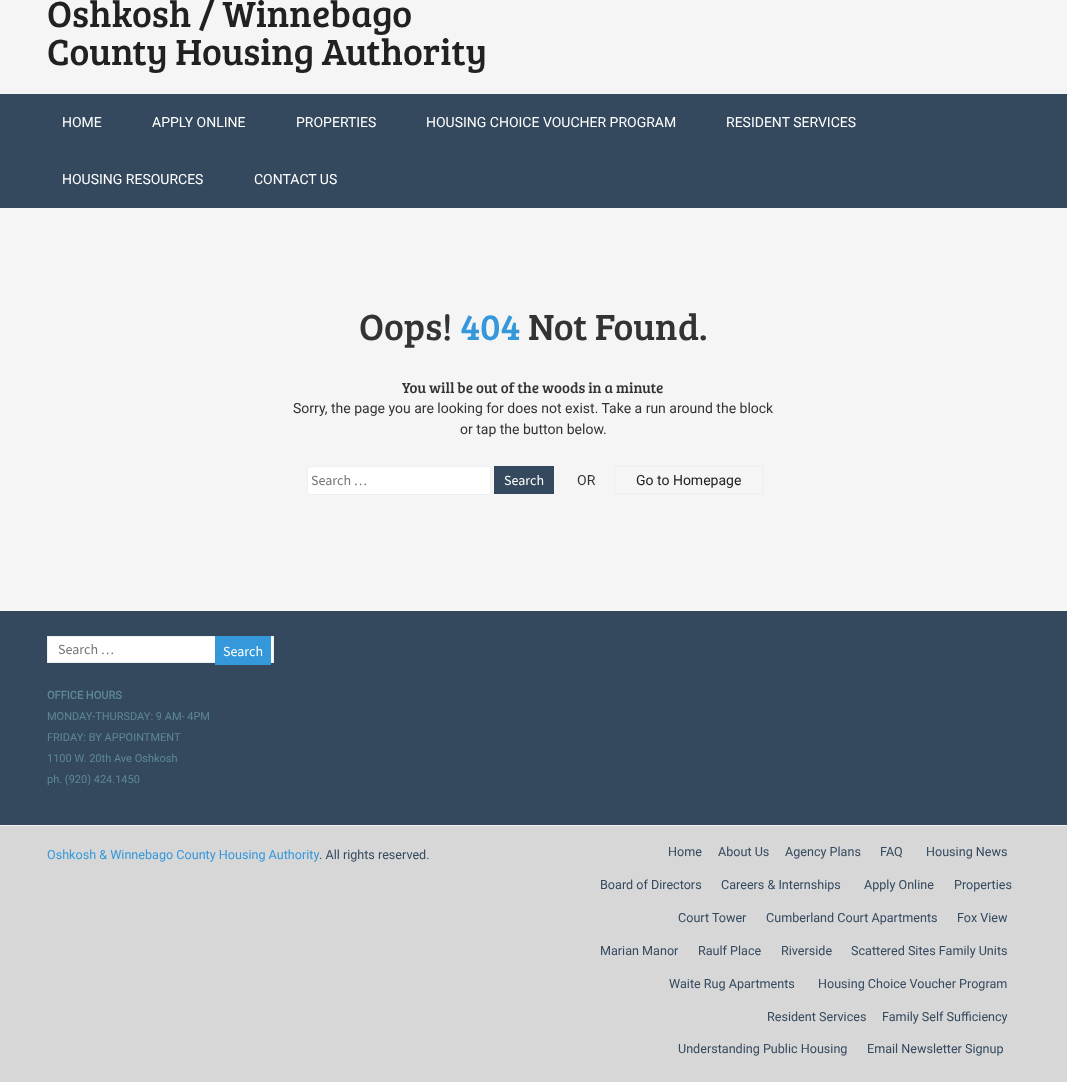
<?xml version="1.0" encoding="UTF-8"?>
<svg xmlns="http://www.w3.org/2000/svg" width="1067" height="1082">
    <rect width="100%" height="100%" fill="#F5F5F5"/>
    <text font-family="Bree Serif" font-size="37.6" fill="#212121">
        <tspan x="47" y="27">Oshkosh / Winnebago</tspan>
        <tspan x="47" y="65">County Housing Authority</tspan>
    </text>
    <rect x="0" y="94" width="1067" height="114" fill="#34495E"/>
    <text x="62" y="127" font-family="Roboto" font-size="14" fill="#FFFFFF">HOME</text>
    <text x="152" y="127" font-family="Roboto" font-size="14" fill="#FFFFFF">APPLY ONLINE</text>
    <text x="296" y="127" font-family="Roboto" font-size="14" fill="#FFFFFF">PROPERTIES</text>
    <text x="426" y="127" font-family="Roboto" font-size="14" fill="#FFFFFF">HOUSING CHOICE VOUCHER PROGRAM</text>
    <text x="726" y="127" font-family="Roboto" font-size="14" fill="#FFFFFF">RESIDENT SERVICES</text>
    <text x="62" y="184" font-family="Roboto" font-size="14" fill="#FFFFFF">HOUSING RESOURCES</text>
    <text x="254" y="184" font-family="Roboto" font-size="14" fill="#FFFFFF">CONTACT US</text>
    <text x="359" y="340" font-family="Bree Serif" font-size="37.6" fill="#333333">Oops!</text>
    <text x="460" y="340" font-family="Bree Serif" font-size="37.6" fill="#3498DB">404</text>
    <text x="528" y="340" font-family="Bree Serif" font-size="37.6" fill="#333333">Not Found.</text>
    <text x="402" y="393" font-family="Bree Serif" font-size="15" fill="#333333">You will be out of the woods in a minute</text>
    <text x="293" y="413" font-family="Roboto" font-size="14" fill="#333333">Sorry, the page you are looking for does not exist. Take a run around the block</text>
    <text x="460" y="434" font-family="Roboto" font-size="14" fill="#333333">or tap the button below.</text>
    <rect x="307.5" y="466.5" width="183" height="28" rx="2.5" fill="#FFFFFF" stroke="#ECF0F1"/>
    <text x="311" y="485" font-family="Source Sans Pro" font-size="14" fill="#757575">Search …</text>
    <rect x="494" y="466" width="60" height="28" fill="#34495E"/>
    <text x="504" y="485" font-family="Source Sans Pro" font-size="14" fill="#FFFFFF">Search</text>
    <text x="577" y="485" font-family="Roboto" font-size="14" fill="#333333">OR</text>
    <rect x="615" y="466" width="148" height="28" fill="none" stroke="#F0F2F3" stroke-width="2"/>
    <text x="636" y="485" font-family="Roboto" font-size="14" fill="#212121">Go to Homepage</text>
    <rect x="0" y="611" width="1067" height="214" fill="#34495E"/>
    <rect x="47.5" y="636.5" width="226" height="26" fill="#FFFFFF" stroke="#ECF0F1"/>
    <text x="58" y="654" font-family="Source Sans Pro" font-size="14" fill="#757575">Search …</text>
    <rect x="215" y="636" width="56" height="29" fill="#3498DB"/>
    <text x="223" y="656" font-family="Source Sans Pro" font-size="14" fill="#FFFFFF">Search</text>
    <text x="47" y="699" font-family="Roboto" font-size="11" font-weight="700" fill="#5D8896">OFFICE HOURS</text>
    <text font-family="Roboto" font-size="11" fill="#5D8896">
        <tspan x="47" y="720">MONDAY-THURSDAY: 9 AM- 4PM</tspan>
        <tspan x="47" y="741">FRIDAY: BY APPOINTMENT</tspan>
        <tspan x="47" y="762">1100 W. 20th Ave Oshkosh</tspan>
        <tspan x="47" y="783">ph. (920) 424.1450</tspan>
    </text>
    <rect x="0" y="826" width="1067" height="256" fill="#D7D7D7"/>
    <rect x="0" y="825" width="1067" height="1" fill="#F0F2F3"/>
    <text x="47" y="859" font-family="Roboto" font-size="12.6" fill="#3498DB">Oshkosh &amp; Winnebago County Housing Authority</text>
    <text x="319" y="859" font-family="Roboto" font-size="12.6" fill="#34495E">. All rights reserved.</text>
    <text x="718" y="856" font-family="Roboto" font-size="12.6" fill="#34495E">About Us</text>
    <text x="785" y="856" font-family="Roboto" font-size="12.6" fill="#34495E">Agency Plans</text>
    <text x="880" y="856" font-family="Roboto" font-size="12.6" fill="#34495E">FAQ</text>
    <text x="926" y="856" font-family="Roboto" font-size="12.6" fill="#34495E">Housing News</text>
    <text x="600" y="889" font-family="Roboto" font-size="12.6" fill="#34495E">Board of Directors</text>
    <text x="721" y="889" font-family="Roboto" font-size="12.6" fill="#34495E">Careers &amp; Internships</text>
    <text x="668" y="856" font-family="Roboto" font-size="12.6" fill="#34495E">Home</text>
    <text x="954" y="889" font-family="Roboto" font-size="12.6" fill="#34495E">Properties</text>
    <text x="678" y="922" font-family="Roboto" font-size="12.6" fill="#34495E">Court Tower</text>
    <text x="766" y="922" font-family="Roboto" font-size="12.6" fill="#34495E">Cumberland Court Apartments</text>
    <text x="957" y="922" font-family="Roboto" font-size="12.6" fill="#34495E">Fox View</text>
    <text x="600" y="955" font-family="Roboto" font-size="12.6" fill="#34495E">Marian Manor</text>
    <text x="698" y="955" font-family="Roboto" font-size="12.6" fill="#34495E">Raulf Place</text>
    <text x="781" y="955" font-family="Roboto" font-size="12.6" fill="#34495E">Riverside</text>
    <text x="851" y="955" font-family="Roboto" font-size="12.6" fill="#34495E">Scattered Sites Family Units</text>
    <text x="669" y="988" font-family="Roboto" font-size="12.6" fill="#34495E">Waite Rug Apartments</text>
    <text x="864" y="889" font-family="Roboto" font-size="12.6" fill="#34495E">Apply Online</text>
    <text x="818" y="988" font-family="Roboto" font-size="12.6" fill="#34495E">Housing Choice Voucher Program</text>
    <text x="882" y="1021" font-family="Roboto" font-size="12.6" fill="#34495E">Family Self Sufficiency</text>
    <text x="678" y="1053" font-family="Roboto" font-size="12.6" fill="#34495E">Understanding Public Housing</text>
    <text x="867" y="1053" font-family="Roboto" font-size="12.6" fill="#34495E">Email Newsletter Signup</text>
    <text x="767" y="1021" font-family="Roboto" font-size="12.6" fill="#34495E">Resident Services</text>
</svg>
